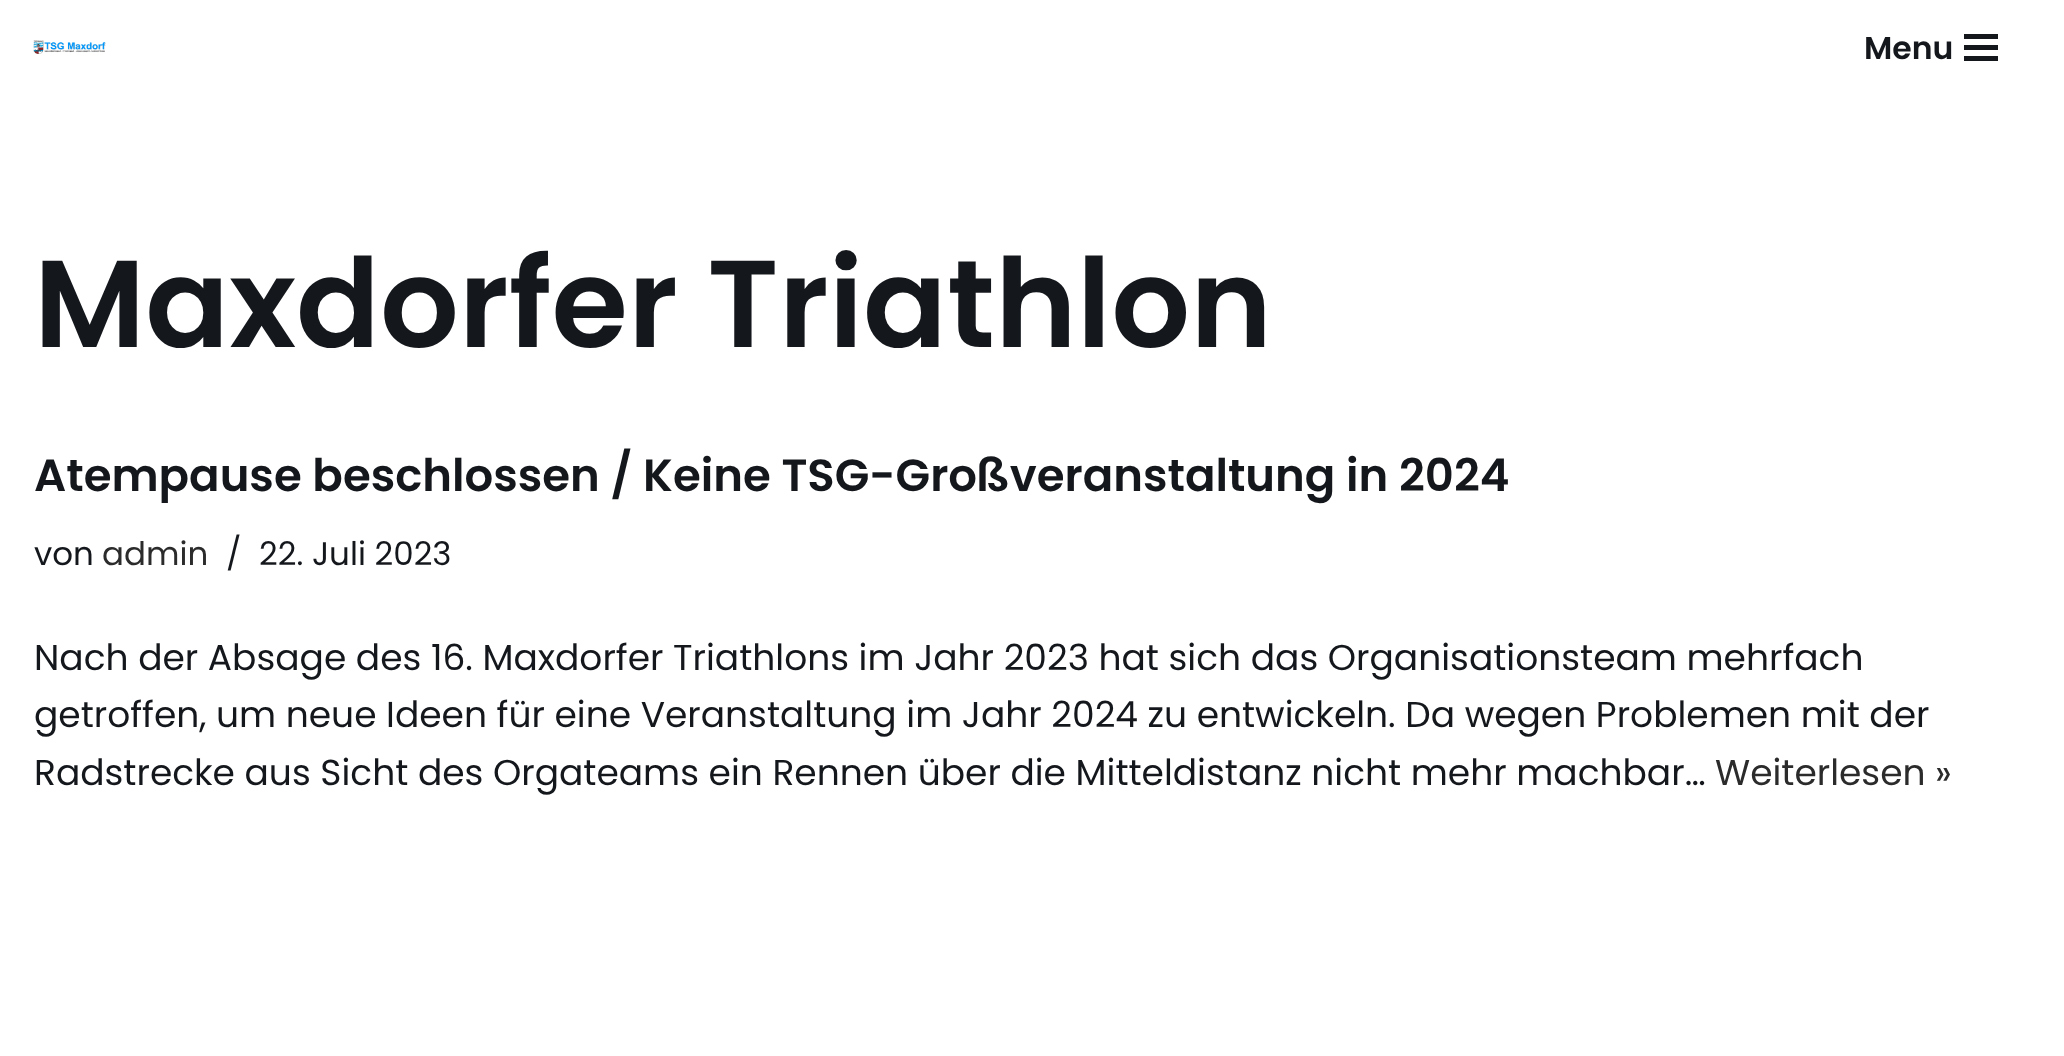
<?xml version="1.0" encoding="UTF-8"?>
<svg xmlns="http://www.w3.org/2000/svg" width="2064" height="1056">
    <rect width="100%" height="100%" fill="#FFFFFF"/>
    <image x="33" y="40" width="73" height="14" href="img_01.png"/>
    <text x="1864" y="59" font-family="Poppins" font-size="31.5" font-weight="600" fill="#14171C">Menu</text>
    <rect x="1964" y="34" width="34" height="5" fill="#14171C"/>
    <rect x="1964" y="45" width="34" height="5" fill="#14171C"/>
    <rect x="1964" y="56" width="34" height="5" fill="#14171C"/>
    <text x="34" y="347" font-family="Poppins" font-size="123.75" font-weight="600" fill="#14171C">Maxdorfer Triathlon</text>
    <text x="34" y="491" font-family="Poppins" font-size="45" font-weight="600" fill="#14171C">Atempause beschlossen / Keine TSG-Großveranstaltung in 2024</text>
    <text x="34" y="565" font-family="Poppins" font-size="32.5" fill="#14171C">von</text>
    <text x="102" y="565" font-family="Poppins" font-size="32.5" fill="#2B2B2B">admin</text>
    <text x="226" y="565" font-family="Poppins" font-size="32.5" fill="#14171C">/</text>
    <text x="259" y="565" font-family="Poppins" font-size="32.5" fill="#14171C">22. Juli 2023</text>
    <text font-family="Poppins" font-size="36" fill="#14171C">
        <tspan x="34" y="670">Nach der Absage des 16. Maxdorfer Triathlons im Jahr 2023 hat sich das Organisationsteam mehrfach</tspan>
        <tspan x="34" y="727">getroffen, um neue Ideen für eine Veranstaltung im Jahr 2024 zu entwickeln. Da wegen Problemen mit der</tspan>
        <tspan x="34" y="785">Radstrecke aus Sicht des Orgateams ein Rennen über die Mitteldistanz nicht mehr machbar…</tspan>
    </text>
    <text x="1715" y="785" font-family="Poppins" font-size="36" fill="#2B2B2B">Weiterlesen »</text>
</svg>
